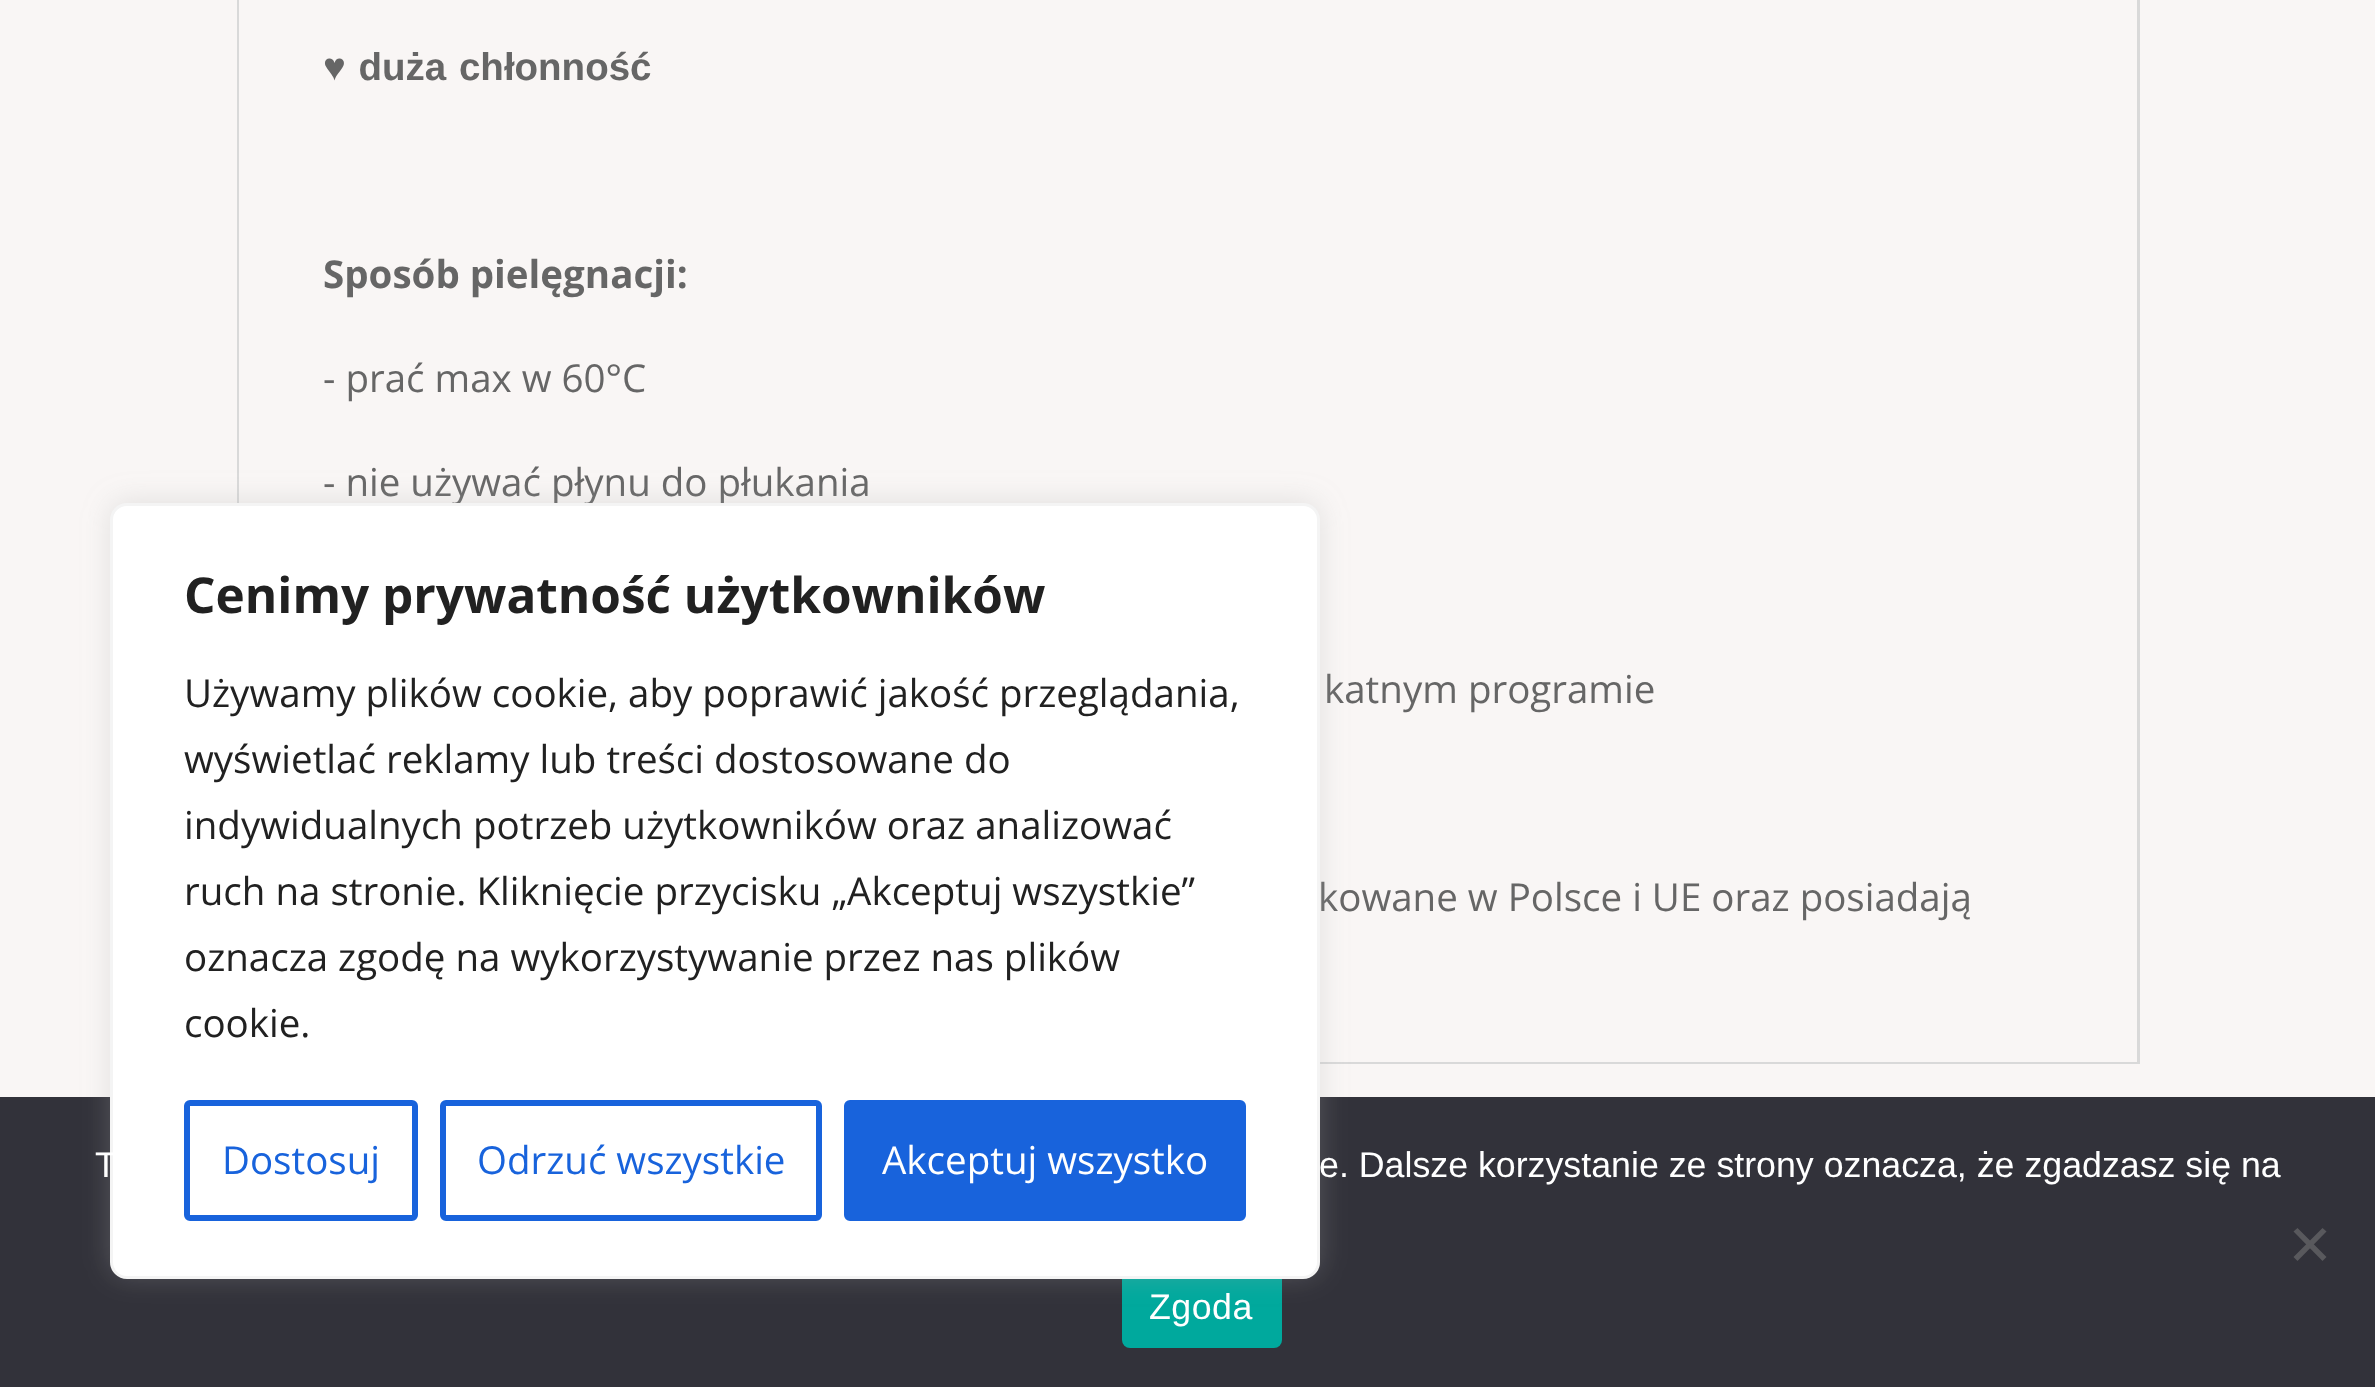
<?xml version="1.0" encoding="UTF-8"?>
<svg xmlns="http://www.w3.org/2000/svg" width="2375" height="1387">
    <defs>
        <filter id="blur1" x="-50%" y="-200%" width="200%" height="500%"><feGaussianBlur stdDeviation="14"/></filter>
    </defs>
    <rect width="100%" height="100%" fill="#F9F6F5"/>
    <rect x="238.5" y="-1.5" width="1900" height="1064" fill="none" stroke="#D9D9D9" stroke-width="3"/>
    <rect x="239" y="0" width="1898" height="1062" fill="#F9F6F5"/>
    <text x="323" y="80" word-spacing="2" font-family="Liberation Sans" font-size="38.5" font-weight="700" fill="#666666">♥ duża chłonność</text>
    <text x="323" y="288" font-family="Open Sans" font-size="38.5" font-weight="700" fill="#666666">Sposób pielęgnacji:</text>
    <text x="323" y="392" font-family="Open Sans" font-size="38.5" fill="#666666">- prać max w 60°C</text>
    <text x="323" y="496" font-family="Open Sans" font-size="38.5" fill="#666666">- nie używać płynu do płukania</text>
    <text x="1324" y="703" font-family="Open Sans" font-size="38.5" fill="#666666">katnym programie</text>
    <text x="1318" y="911" font-family="Open Sans" font-size="38.5" fill="#666666">kowane w Polsce i UE oraz posiadają</text>
    <rect x="0" y="1097" width="2375" height="290" fill="#32323A"/>
    <rect x="1122" y="1265" width="160" height="83" rx="8" fill="#00A99D"/>
    <rect x="110" y="501" width="1210" height="775" rx="17" fill="#ACABAB" fill-opacity="0.3" filter="url(#blur1)"/>
    <rect x="111.5" y="504.5" width="1207" height="773" rx="15.5" fill="#FFFFFF" stroke="#F4F4F4" stroke-width="3"/>
    <text x="184" y="613" font-family="Open Sans" font-size="49.5" font-weight="700" fill="#212121">Cenimy prywatność użytkowników</text>
    <text font-family="Open Sans" font-size="38.5" fill="#212121">
        <tspan x="184" y="707">Używamy plików cookie, aby poprawić jakość przeglądania,</tspan>
        <tspan x="184" y="773">wyświetlać reklamy lub treści dostosowane do</tspan>
        <tspan x="184" y="839">indywidualnych potrzeb użytkowników oraz analizować</tspan>
        <tspan x="184" y="905">ruch na stronie. Kliknięcie przycisku „Akceptuj wszystkie”</tspan>
        <tspan x="184" y="971">oznacza zgodę na wykorzystywanie przez nas plików</tspan>
        <tspan x="184" y="1037">cookie.</tspan>
    </text>
    <rect x="187" y="1103" width="228" height="115" rx="3" fill="none" stroke="#1863DC" stroke-width="6"/>
    <text x="222" y="1174" font-family="Open Sans" font-size="38.5" fill="#1863DC">Dostosuj</text>
    <rect x="443" y="1103" width="376" height="115" rx="3" fill="none" stroke="#1863DC" stroke-width="6"/>
    <text x="477" y="1174" font-family="Open Sans" font-size="38.5" fill="#1863DC">Odrzuć wszystkie</text>
    <rect x="847" y="1103" width="396" height="115" rx="3" fill="#1863DC" stroke="#1863DC" stroke-width="6"/>
    <text x="882" y="1174" font-family="Open Sans" font-size="38.5" fill="#FFFFFF">Akceptuj wszystko</text>
    <text x="95" y="1177" font-family="Liberation Sans" font-size="35.75" fill="#FFFFFF">T</text>
    <text x="1319" y="1177" font-family="Liberation Sans" font-size="35.75" fill="#FFFFFF">e. Dalsze korzystanie ze strony oznacza, że zgadzasz się na</text>
    <path d="M 2322.5 1228 L 2326.5 1231.5 L 2297.5 1261 L 2293.5 1257 Z" fill="#59595D"/>
    <path d="M 2293.5 1231.5 L 2297.5 1228 L 2326.5 1257 L 2322.5 1261 Z" fill="#59595D"/>
    <text x="1149" y="1319" font-family="Liberation Sans" font-size="35.75" letter-spacing="0.5" fill="#FFFFFF">Zgoda</text>
</svg>
